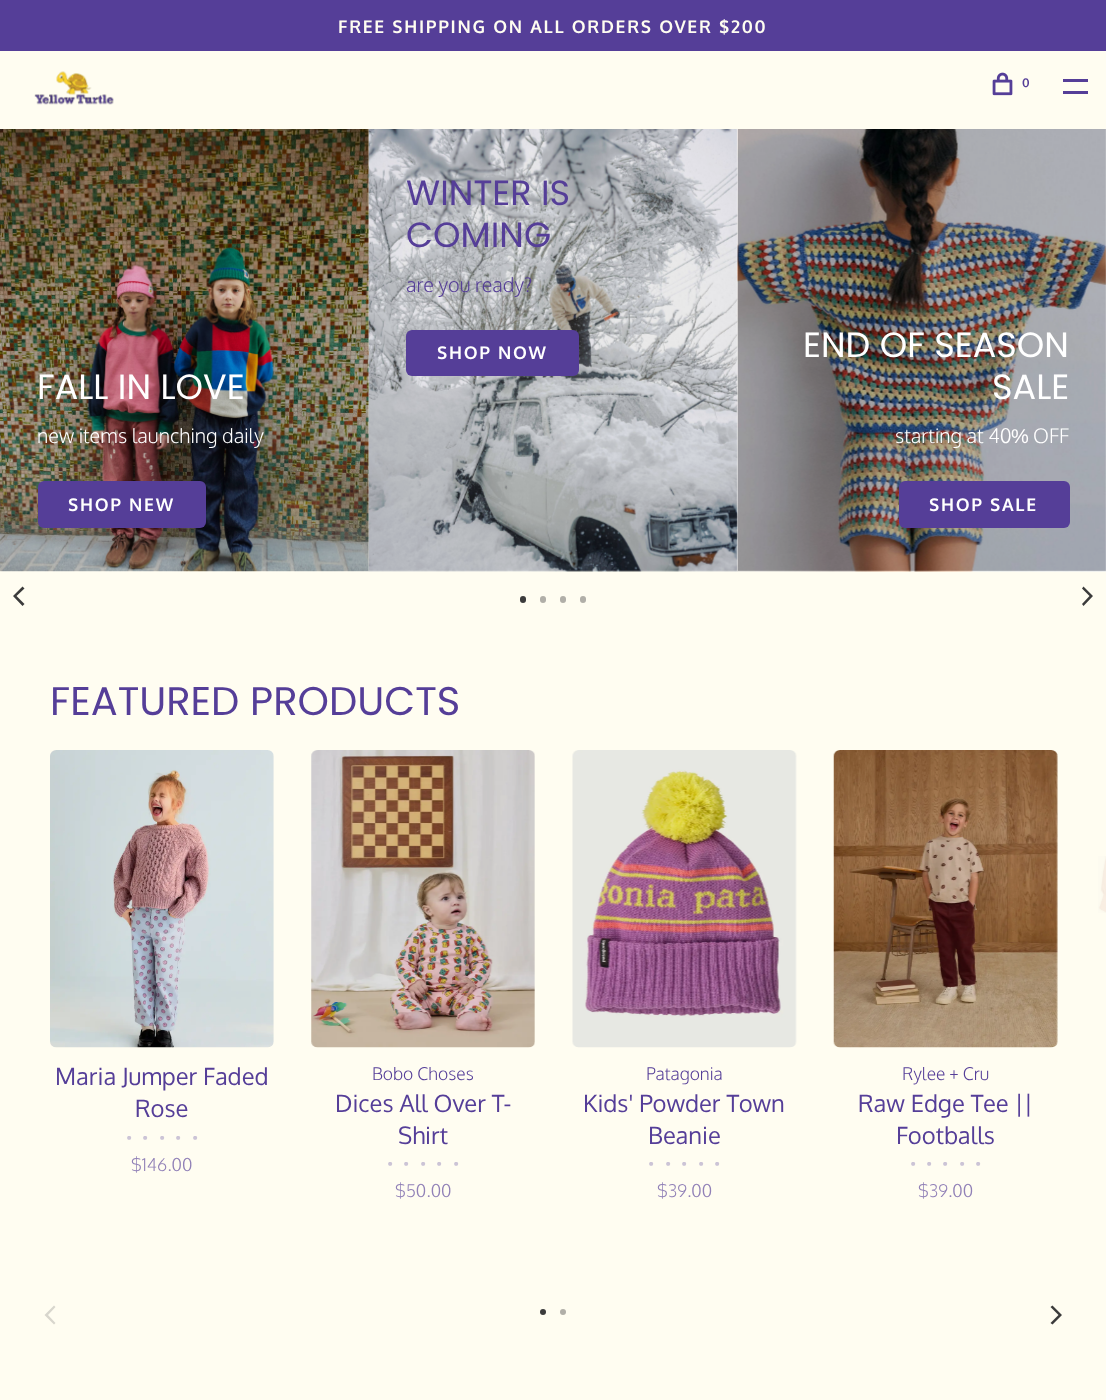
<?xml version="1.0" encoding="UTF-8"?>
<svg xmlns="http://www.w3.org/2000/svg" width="1106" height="1400">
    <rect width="100%" height="100%" fill="#FFFDF1"/>
    <rect x="0" y="0" width="1106" height="51" fill="#553E98"/>
    <text x="338" y="33" font-family="Oxygen" font-size="17.5" font-weight="700" letter-spacing="1.75" fill="#FFFDF1">FREE SHIPPING ON ALL ORDERS OVER $200</text>
    <image x="34" y="71" width="80" height="34" href="img_01.png"/>
    <image x="992" y="72" width="21" height="24" href="img_02.png"/>
    <text x="1022" y="87" font-family="Oxygen" font-size="12" font-weight="700" letter-spacing="1.75" fill="#553E98">0</text>
    <rect x="1063" y="79" width="25" height="3" fill="#553E98"/>
    <rect x="1063" y="91" width="25" height="3" fill="#553E98"/>
    <image x="0" y="129" width="369" height="443" href="img_04.png"/>
    <image x="368" y="129" width="370" height="443" href="img_03.png"/>
    <text font-family="Poppins" font-size="35" fill="#553E98">
        <tspan x="406" y="205">WINTER IS</tspan>
        <tspan x="406" y="247">COMING</tspan>
    </text>
    <text x="406" y="292" font-family="Oxygen" font-size="20" font-weight="300" fill="#553E98">are you ready?</text>
    <rect x="406" y="330" width="173" height="46" rx="6" fill="#553E98"/>
    <text x="437" y="359" font-family="Oxygen" font-size="17.5" font-weight="700" letter-spacing="1.75" fill="#FFFFFF">SHOP NOW</text>
    <text x="37" y="399" font-family="Poppins" font-size="35" fill="#FFFFFF">FALL IN LOVE</text>
    <text x="37" y="443" font-family="Oxygen" font-size="20" font-weight="300" fill="#FFFFFF">new items launching daily</text>
    <rect x="38" y="481" width="168" height="47" rx="6" fill="#553E98"/>
    <text x="68" y="511" font-family="Oxygen" font-size="17.5" font-weight="700" letter-spacing="1.75" fill="#FFFFFF">SHOP NEW</text>
    <image x="737" y="129" width="369" height="443" href="img_05.png"/>
    <text x="803" y="357" font-family="Poppins" font-size="35" fill="#FFFFFF">END OF SEASON</text>
    <text x="992" y="399" font-family="Poppins" font-size="35" fill="#FFFFFF">SALE</text>
    <text x="895" y="443" font-family="Oxygen" font-size="20" font-weight="300" fill="#FFFFFF">starting at 40</text>
    <text x="1011" y="443" font-family="Liberation Sans" font-size="20" fill="#FFFFFF">%</text>
    <text x="1033" y="443" font-family="Oxygen" font-size="20" font-weight="300" fill="#FFFFFF">OFF</text>
    <rect x="899" y="481" width="171" height="47" rx="6" fill="#553E98"/>
    <text x="929" y="511" font-family="Oxygen" font-size="17.5" font-weight="700" letter-spacing="1.75" fill="#FFFFFF">SHOP SALE</text>
    <path d="M 22.5 606 L 13 596 L 22.5 586.5 L 24.5 588.5 L 16.5 596 L 24.5 604 Z" fill="#3B3B3B"/>
    <rect x="520" y="596" width="6" height="7" rx="3" fill="#3B3B3B"/>
    <rect x="540" y="596" width="6" height="7" rx="3" fill="#B1AFA8"/>
    <rect x="560" y="596" width="6" height="7" rx="3" fill="#B1AFA8"/>
    <rect x="580" y="596" width="6" height="7" rx="3" fill="#B1AFA8"/>
    <path d="M 1083.5 606 L 1082 604 L 1089.5 596 L 1082 588.5 L 1083.5 586.5 L 1093 596 Z" fill="#3B3B3B"/>
    <text x="50" y="715" font-family="Poppins" font-size="40" fill="#553E98">FEATURED PRODUCTS</text>
    <image x="1098" y="856" width="8" height="57" href="img_06.png"/>
    <image x="50" y="750" width="224" height="298" href="img_07.png"/>
    <text x="55" y="1085" font-family="Oxygen" font-size="23.75" fill="#553E98">Maria Jumper Faded</text>
    <text x="135" y="1117" font-family="Oxygen" font-size="23.75" fill="#553E98">Rose</text>
    <text x="126" y="1144" font-family="Oxygen" font-size="16" font-weight="300" fill="#CCC4D6">•</text>
    <text x="142" y="1144" font-family="Oxygen" font-size="16" font-weight="300" fill="#CCC4D6">•</text>
    <text x="159" y="1144" font-family="Oxygen" font-size="16" font-weight="300" fill="#CCC4D6">•</text>
    <text x="175" y="1144" font-family="Oxygen" font-size="16" font-weight="300" fill="#CCC4D6">•</text>
    <text x="192" y="1144" font-family="Oxygen" font-size="16" font-weight="300" fill="#CCC4D6">•</text>
    <text x="131" y="1171" font-family="Oxygen" font-size="17.5" font-weight="300" fill="#9181B7">$146.00</text>
    <image x="311" y="750" width="224" height="298" href="img_08.png"/>
    <text x="372" y="1080" font-family="Oxygen" font-size="17.5" font-weight="300" fill="#553E98">Bobo Choses</text>
    <text x="335" y="1112" font-family="Oxygen" font-size="23.75" fill="#553E98">Dices All Over T-</text>
    <text x="398" y="1144" font-family="Oxygen" font-size="23.75" fill="#553E98">Shirt</text>
    <text x="387" y="1170" font-family="Oxygen" font-size="16" font-weight="300" fill="#CCC4D6">•</text>
    <text x="403" y="1170" font-family="Oxygen" font-size="16" font-weight="300" fill="#CCC4D6">•</text>
    <text x="420" y="1170" font-family="Oxygen" font-size="16" font-weight="300" fill="#CCC4D6">•</text>
    <text x="436" y="1170" font-family="Oxygen" font-size="16" font-weight="300" fill="#CCC4D6">•</text>
    <text x="453" y="1170" font-family="Oxygen" font-size="16" font-weight="300" fill="#CCC4D6">•</text>
    <text x="395" y="1197" font-family="Oxygen" font-size="17.5" font-weight="300" fill="#9181B7">$50.00</text>
    <image x="572" y="750" width="225" height="298" href="img_09.png"/>
    <text x="646" y="1080" font-family="Oxygen" font-size="17.5" font-weight="300" fill="#553E98">Patagonia</text>
    <text x="583" y="1112" font-family="Oxygen" font-size="23.75" fill="#553E98">Kids' Powder Town</text>
    <text x="648" y="1144" font-family="Oxygen" font-size="23.75" fill="#553E98">Beanie</text>
    <text x="648" y="1170" font-family="Oxygen" font-size="16" font-weight="300" fill="#CCC4D6">•</text>
    <text x="665" y="1170" font-family="Oxygen" font-size="16" font-weight="300" fill="#CCC4D6">•</text>
    <text x="681" y="1170" font-family="Oxygen" font-size="16" font-weight="300" fill="#CCC4D6">•</text>
    <text x="698" y="1170" font-family="Oxygen" font-size="16" font-weight="300" fill="#CCC4D6">•</text>
    <text x="714" y="1170" font-family="Oxygen" font-size="16" font-weight="300" fill="#CCC4D6">•</text>
    <text x="657" y="1197" font-family="Oxygen" font-size="17.5" font-weight="300" fill="#9181B7">$39.00</text>
    <image x="833" y="750" width="225" height="298" href="img_10.png"/>
    <text x="902" y="1080" font-family="Oxygen" font-size="17.5" font-weight="300" fill="#553E98">Rylee + Cru</text>
    <text x="858" y="1112" font-family="Oxygen" font-size="23.75" fill="#553E98">Raw Edge Tee ||</text>
    <text x="896" y="1144" font-family="Oxygen" font-size="23.75" fill="#553E98">Footballs</text>
    <text x="910" y="1170" font-family="Oxygen" font-size="16" font-weight="300" fill="#CCC4D6">•</text>
    <text x="926" y="1170" font-family="Oxygen" font-size="16" font-weight="300" fill="#CCC4D6">•</text>
    <text x="942" y="1170" font-family="Oxygen" font-size="16" font-weight="300" fill="#CCC4D6">•</text>
    <text x="959" y="1170" font-family="Oxygen" font-size="16" font-weight="300" fill="#CCC4D6">•</text>
    <text x="975" y="1170" font-family="Oxygen" font-size="16" font-weight="300" fill="#CCC4D6">•</text>
    <text x="918" y="1197" font-family="Oxygen" font-size="17.5" font-weight="300" fill="#9181B7">$39.00</text>
    <path d="M 54 1324.5 L 44.5 1315 L 54 1305.5 L 55.5 1307 L 48 1315 L 55.5 1323 Z" fill="#D8D6CD"/>
    <circle cx="543" cy="1312" r="3" fill="#3B3B3B"/>
    <circle cx="563" cy="1312" r="3" fill="#B1AFA8"/>
    <path d="M 1052.5 1324.5 L 1050.5 1323 L 1058.5 1315 L 1050.5 1307 L 1052.5 1305.5 L 1062 1315 Z" fill="#3B3B3B"/>
</svg>
